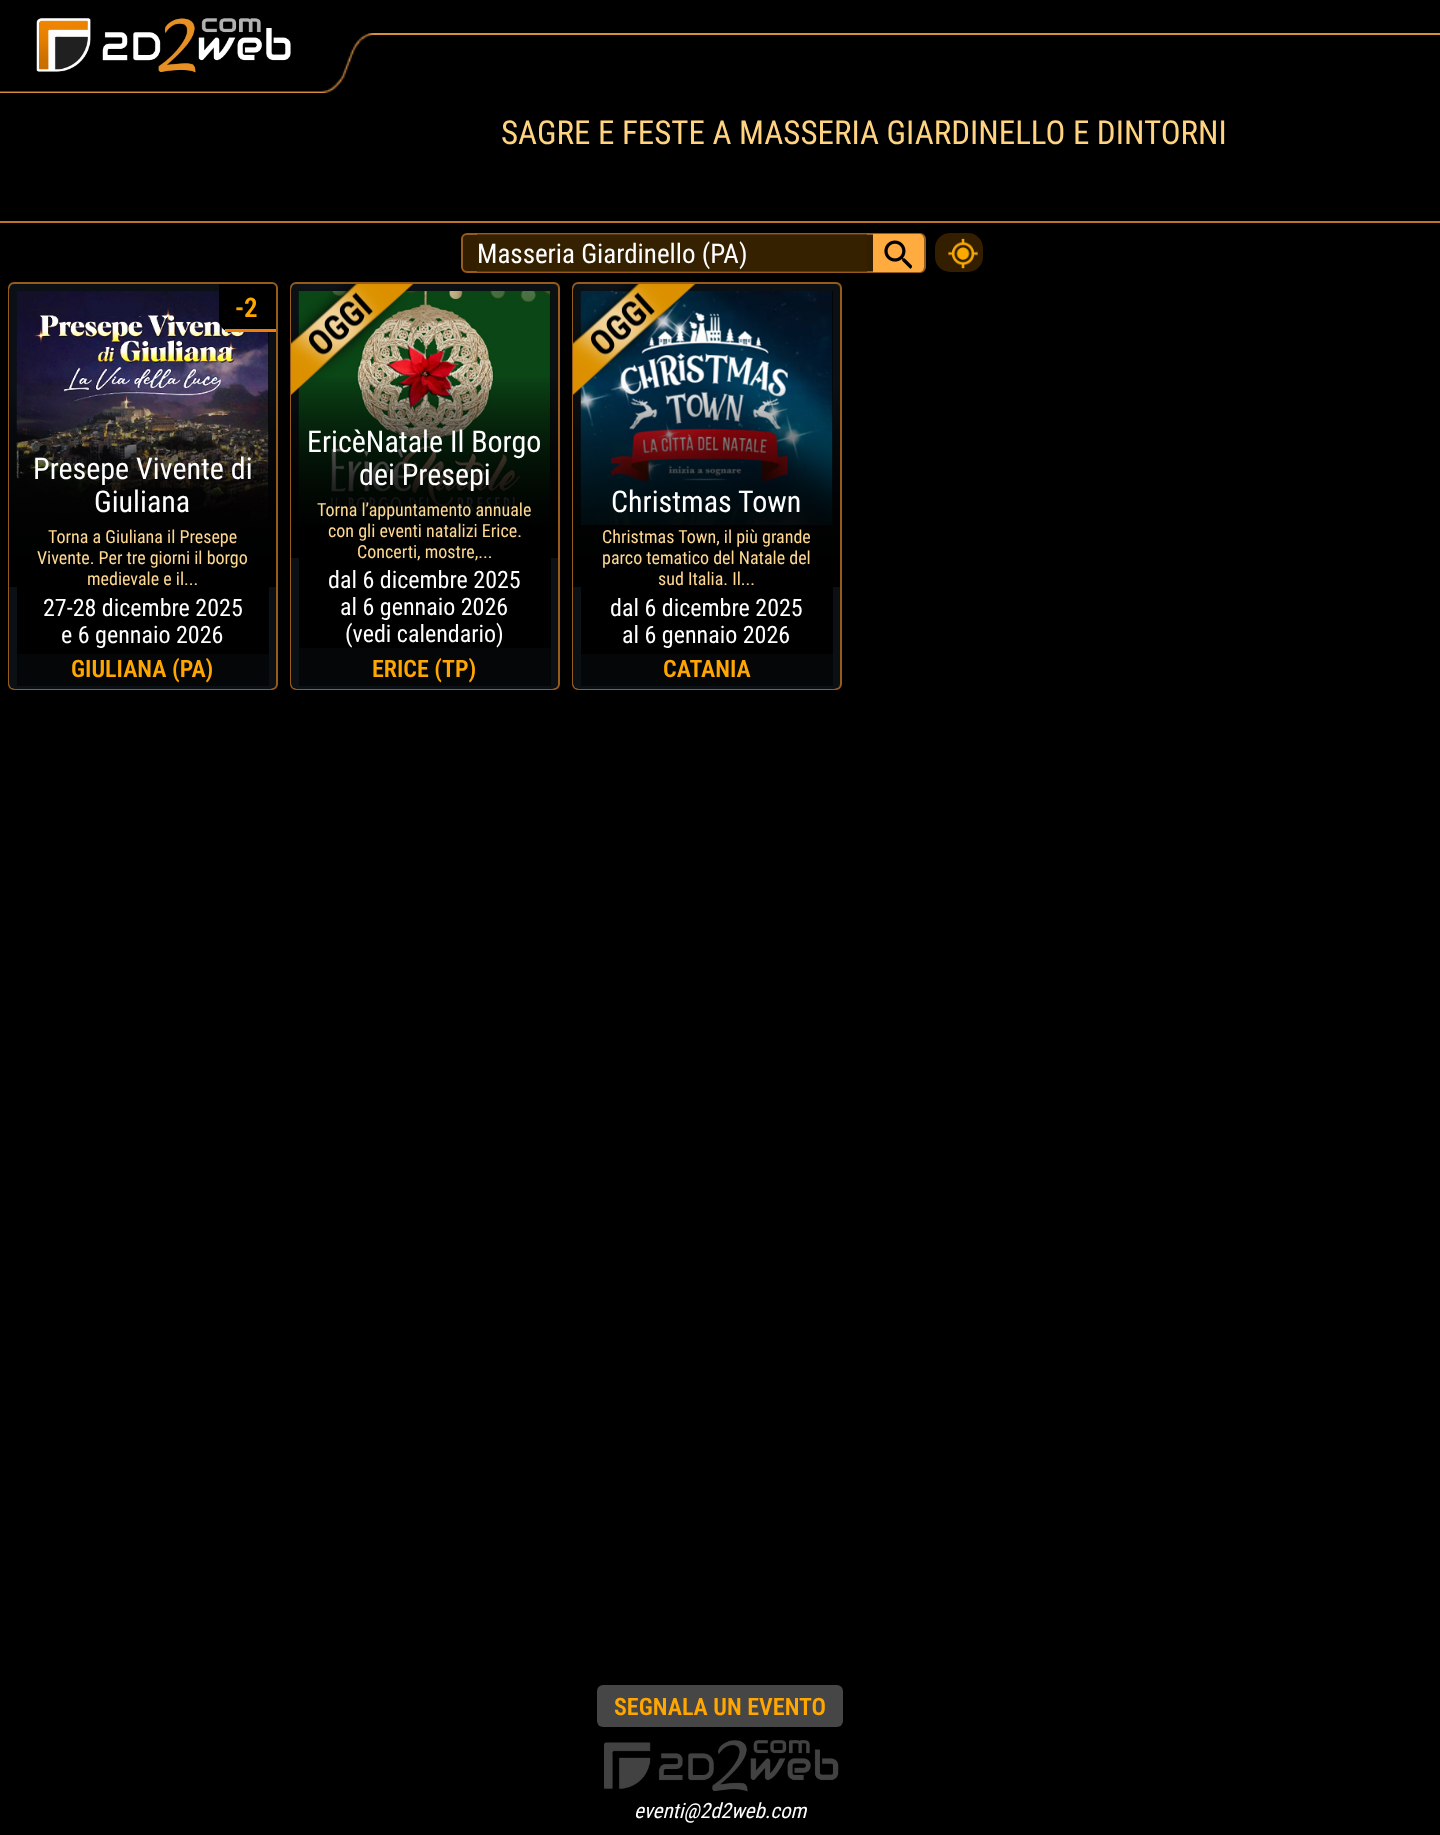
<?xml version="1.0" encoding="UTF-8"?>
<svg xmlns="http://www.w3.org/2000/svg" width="1440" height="1835">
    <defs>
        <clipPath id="clip1"><rect x="9" y="284" width="267" height="405" rx="5"/></clipPath>
        <linearGradient id="g1" gradientUnits="userSpaceOnUse" x1="142" y1="284" x2="143" y2="587"><stop offset="0.33" stop-color="#000000" stop-opacity="0"/><stop offset="1" stop-color="#000000"/></linearGradient>
        <clipPath id="clip2"><rect x="291" y="284" width="267" height="405" rx="5"/></clipPath>
        <linearGradient id="g2" gradientUnits="userSpaceOnUse" x1="425" y1="284" x2="425" y2="554"><stop offset="0.33" stop-color="#000000" stop-opacity="0"/><stop offset="1" stop-color="#000000"/></linearGradient>
        <clipPath id="clip3"><rect x="573" y="284" width="267" height="405" rx="5"/></clipPath>
        <linearGradient id="g3" gradientUnits="userSpaceOnUse" x1="707" y1="284" x2="707" y2="587"><stop offset="0.33" stop-color="#000000" stop-opacity="0"/><stop offset="1" stop-color="#000000"/></linearGradient>
    </defs>
    <rect width="100%" height="100%" fill="#000000"/>
    <rect x="367" y="33" width="1073" height="2" fill="#DB8E3C"/>
    <image x="0" y="33" width="374" height="60" href="img_02.png"/>
    <image x="36" y="18" width="255" height="55" href="img_01.png"/>
    <text x="501" y="144" font-family="Roboto Condensed" font-size="33" fill="#FFD380">SAGRE E FESTE A MASSERIA GIARDINELLO E DINTORNI</text>
    <rect x="0" y="221" width="1440" height="2" fill="#BF7425"/>
    <rect x="462" y="234" width="463" height="38" rx="5" fill="#331E00" stroke="#975B1B" stroke-width="2"/>
    <rect x="477" y="234" width="390" height="38" fill="#372100" fill-opacity="0.6"/>
    <text x="477" y="263" font-family="Roboto Condensed" font-size="27" fill="#FFFFFF">Masseria Giardinello (PA)</text>
    <path d="M 873 234 H 919 C 922 234 924 236 924 239 V 267 C 924 270 922 272 919 272 H 873 Z" fill="#FFAB3F"/>
    <image x="884" y="240" width="28" height="29" href="img_03.png"/>
    <rect x="935" y="233" width="48" height="39" rx="15" fill="#331E00"/>
    <image x="948" y="238" width="30" height="31" href="img_04.png"/>
    <rect x="9" y="283" width="268" height="406" rx="5" fill="#202020" stroke="#975B1B" stroke-width="2"/>
    <g clip-path="url(#clip1)">
        <rect x="9" y="284" width="267" height="405" rx="6" fill="#0A1014"/>
    </g>
    <rect x="268" y="332" width="1" height="193" fill="#000000"/>
    <image x="16" y="291" width="253" height="234" href="img_05.png"/>
    <path d="M 219 284 H 271 C 274 284 276 286 276 289 V 332 H 231 C 224.5 332 219 326.5 219 320 Z" fill="#000000"/>
    <rect x="225" y="329" width="51" height="3" fill="#EF7F08"/>
    <text x="235" y="317" font-family="Roboto Condensed" font-size="27" font-weight="600" fill="#FFA700">-2</text>
    <rect x="17" y="585" width="252" height="69" fill="#000000"/>
    <text x="43" y="616" font-family="Roboto Condensed" font-size="24" fill="#FFFFFF">27-28 dicembre 2025</text>
    <text x="61" y="643" font-family="Roboto Condensed" font-size="24" fill="#FFFFFF">e 6 gennaio 2026</text>
    <rect x="17" y="654" width="252" height="32" fill="#040608"/>
    <text x="71" y="677" font-family="Roboto Condensed" font-size="24" font-weight="600" fill="#FFA700">GIULIANA (PA)</text>
    <rect x="9" y="388" width="267" height="198" fill="url(#g1)"/>
    <rect x="9" y="388" width="267" height="199" fill="url(#g1)"/>
    <text x="33" y="479" font-family="Roboto Condensed" font-size="30" fill="#FFFFFF">Presepe Vivente di</text>
    <text x="94" y="512" font-family="Roboto Condensed" font-size="30" fill="#FFFFFF">Giuliana</text>
    <text x="48" y="543" font-family="Roboto Condensed" font-size="18" fill="#FFD992">Torna a Giuliana il Presepe</text>
    <text x="37" y="564" font-family="Roboto Condensed" font-size="18" fill="#FFD992">Vivente. Per tre giorni il borgo</text>
    <text x="87" y="585" font-family="Roboto Condensed" font-size="18" fill="#FFD992">medievale e il...</text>
    <rect x="291" y="283" width="268" height="406" rx="5" fill="#202020" stroke="#975B1B" stroke-width="2"/>
    <g clip-path="url(#clip2)">
        <rect x="291" y="284" width="267" height="405" rx="6" fill="#0A1014"/>
    </g>
    <rect x="550" y="291" width="1" height="234" fill="#000000"/>
    <image x="298" y="291" width="253" height="234" href="img_07.png"/>
    <rect x="291" y="377" width="267" height="148" fill="url(#g2)"/>
    <rect x="291" y="377" width="267" height="148" fill="url(#g2)"/>
    <image x="291" y="283" width="123" height="113" href="img_06.png"/>
    <text x="307" y="452" font-family="Roboto Condensed" font-size="30" fill="#FFFFFF">EricèNatale Il Borgo</text>
    <text x="359" y="485" font-family="Roboto Condensed" font-size="30" fill="#FFFFFF">dei Presepi</text>
    <text x="317" y="516" font-family="Roboto Condensed" font-size="18" fill="#FFD992">Torna l’appuntamento annuale</text>
    <rect x="291" y="525" width="267" height="33" fill="#000000"/>
    <text x="328" y="537" font-family="Roboto Condensed" font-size="18" fill="#FFD992">con gli eventi natalizi Erice.</text>
    <rect x="299" y="558" width="252" height="90" fill="#000000"/>
    <text x="357" y="558" font-family="Roboto Condensed" font-size="18" fill="#FFD992">Concerti, mostre,...</text>
    <text x="328" y="588" font-family="Roboto Condensed" font-size="24" fill="#FFFFFF">dal 6 dicembre 2025</text>
    <text x="340" y="615" font-family="Roboto Condensed" font-size="24" fill="#FFFFFF">al 6 gennaio 2026</text>
    <text x="345" y="642" font-family="Roboto Condensed" font-size="24" fill="#FFFFFF">(vedi calendario)</text>
    <rect x="299" y="648" width="252" height="38" fill="#040608"/>
    <text x="372" y="677" font-family="Roboto Condensed" font-size="24" font-weight="600" fill="#FFA700">ERICE (TP)</text>
    <rect x="573" y="283" width="268" height="406" rx="5" fill="#202020" stroke="#975B1B" stroke-width="2"/>
    <g clip-path="url(#clip3)">
        <rect x="573" y="284" width="267" height="405" rx="6" fill="#0A1014"/>
    </g>
    <rect x="832" y="291" width="1" height="234" fill="#000000"/>
    <image x="580" y="291" width="253" height="234" href="img_09.png"/>
    <rect x="581" y="585" width="252" height="69" fill="#000000"/>
    <rect x="573" y="388" width="267" height="198" fill="url(#g3)"/>
    <rect x="573" y="388" width="267" height="199" fill="url(#g3)"/>
    <image x="573" y="283" width="123" height="113" href="img_08.png"/>
    <text x="611" y="512" font-family="Roboto Condensed" font-size="30" fill="#FFFFFF">Christmas Town</text>
    <text font-family="Roboto Condensed" font-size="18" fill="#FFD992">
        <tspan x="602" y="543">Christmas Town, il più grande</tspan>
        <tspan x="602" y="564">parco tematico del Natale del</tspan>
    </text>
    <text x="658" y="585" font-family="Roboto Condensed" font-size="18" fill="#FFD992">sud Italia. Il...</text>
    <text x="610" y="616" font-family="Roboto Condensed" font-size="24" fill="#FFFFFF">dal 6 dicembre 2025</text>
    <text x="622" y="643" font-family="Roboto Condensed" font-size="24" fill="#FFFFFF">al 6 gennaio 2026</text>
    <rect x="581" y="654" width="252" height="32" fill="#040608"/>
    <text x="663" y="677" font-family="Roboto Condensed" font-size="24" font-weight="600" fill="#FFA700">CATANIA</text>
    <rect x="597" y="1685" width="246" height="42" rx="6" fill="#464646"/>
    <text x="614" y="1715" font-family="Roboto Condensed" font-size="24" font-weight="600" fill="#FFA700">SEGNALA UN EVENTO</text>
    <image x="604" y="1740" width="235" height="52" href="img_10.png"/>
    <text x="634" y="1818" font-family="Roboto Condensed" font-size="21" font-style="italic" fill="#FFFFFF">eventi@2d2web.com</text>
</svg>
